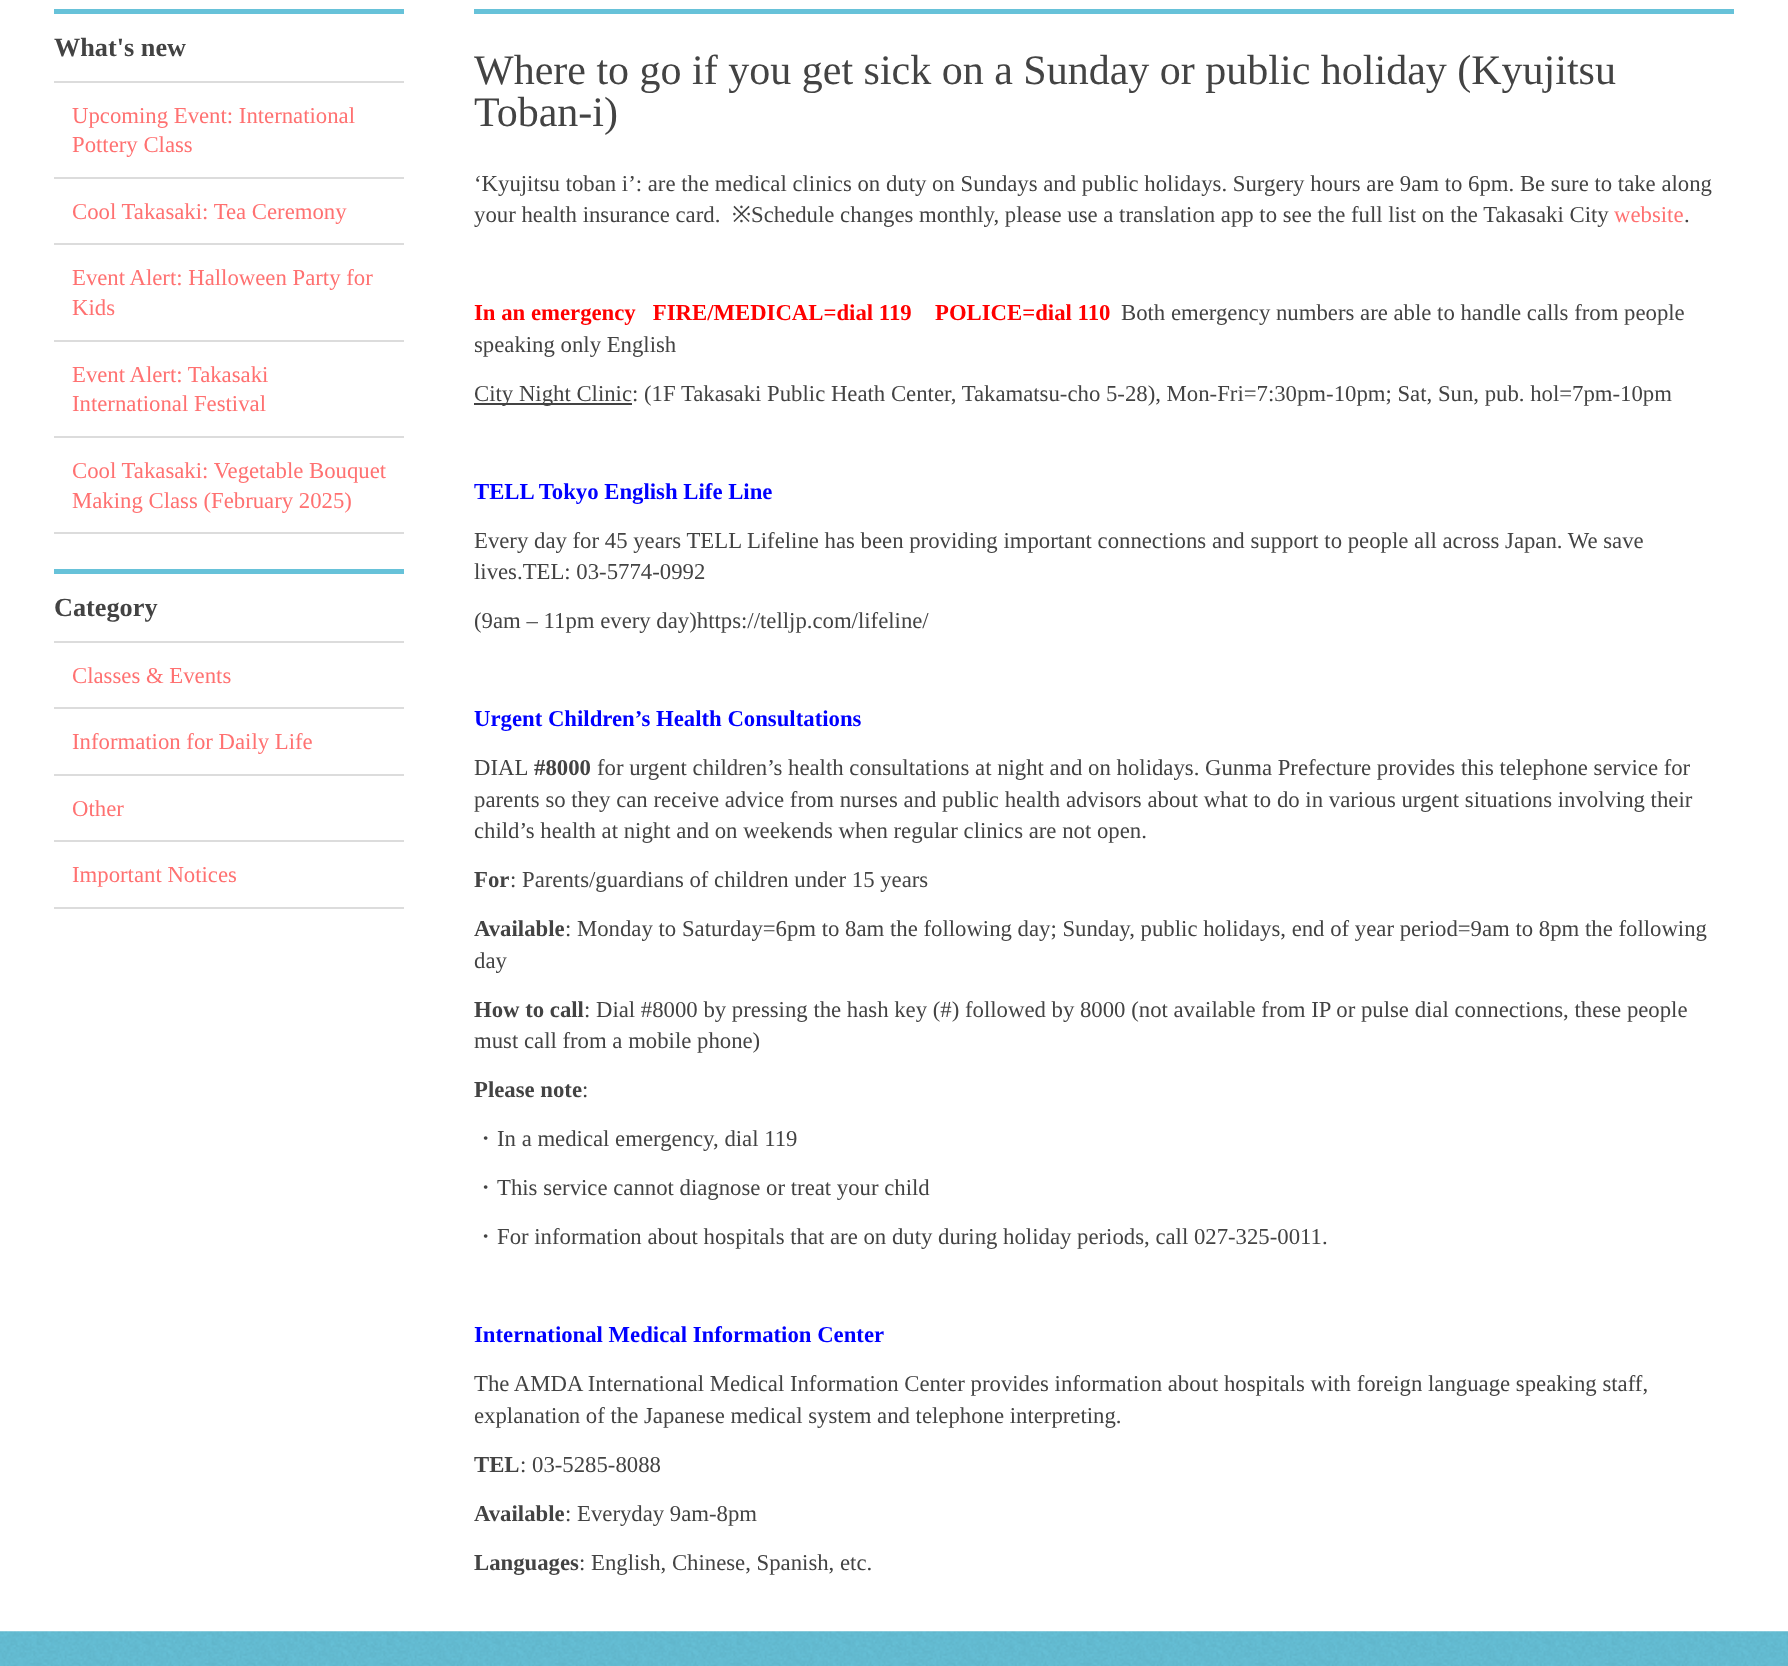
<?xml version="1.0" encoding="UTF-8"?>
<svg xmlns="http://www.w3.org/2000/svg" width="1788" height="1666">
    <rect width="100%" height="100%" fill="#FFFFFF"/>
    <rect x="54" y="9" width="350" height="5" fill="#67C2D9"/>
    <text x="54" y="56" font-family="Liberation Serif" font-size="26.25" font-weight="700" fill="#434343">What's new</text>
    <rect x="54" y="81" width="350" height="2" fill="#DCDCDC"/>
    <rect x="54" y="177" width="350" height="2" fill="#DCDCDC"/>
    <text font-family="Liberation Serif" font-size="22.75" fill="#FF7171">
        <tspan x="72" y="123">Upcoming Event: International</tspan>
        <tspan x="72" y="152">Pottery Class</tspan>
    </text>
    <rect x="54" y="243" width="350" height="2" fill="#DCDCDC"/>
    <text x="72" y="219" font-family="Liberation Serif" font-size="22.75" fill="#FF7171">Cool Takasaki: Tea Ceremony</text>
    <rect x="54" y="340" width="350" height="2" fill="#DCDCDC"/>
    <text font-family="Liberation Serif" font-size="22.75" fill="#FF7171">
        <tspan x="72" y="285">Event Alert: Halloween Party for</tspan>
        <tspan x="72" y="315">Kids</tspan>
    </text>
    <rect x="54" y="436" width="350" height="2" fill="#DCDCDC"/>
    <text font-family="Liberation Serif" font-size="22.75" fill="#FF7171">
        <tspan x="72" y="382">Event Alert: Takasaki</tspan>
        <tspan x="72" y="411">International Festival</tspan>
    </text>
    <rect x="54" y="532" width="350" height="2" fill="#DCDCDC"/>
    <text font-family="Liberation Serif" font-size="22.75" fill="#FF7171">
        <tspan x="72" y="478">Cool Takasaki: Vegetable Bouquet</tspan>
        <tspan x="72" y="508">Making Class (February 2025)</tspan>
    </text>
    <rect x="54" y="569" width="350" height="5" fill="#67C2D9"/>
    <text x="54" y="616" font-family="Liberation Serif" font-size="26.25" font-weight="700" fill="#434343">Category</text>
    <rect x="54" y="641" width="350" height="2" fill="#DCDCDC"/>
    <rect x="54" y="707" width="350" height="2" fill="#DCDCDC"/>
    <text x="72" y="683" font-family="Liberation Serif" font-size="22.75" fill="#FF7171">Classes &amp; Events</text>
    <rect x="54" y="774" width="350" height="2" fill="#DCDCDC"/>
    <text x="72" y="749" font-family="Liberation Serif" font-size="22.75" fill="#FF7171">Information for Daily Life</text>
    <rect x="54" y="840" width="350" height="2" fill="#DCDCDC"/>
    <text x="72" y="816" font-family="Liberation Serif" font-size="22.75" fill="#FF7171">Other</text>
    <rect x="54" y="907" width="350" height="2" fill="#DCDCDC"/>
    <text x="72" y="882" font-family="Liberation Serif" font-size="22.75" fill="#FF7171">Important Notices</text>
    <rect x="474" y="9" width="1260" height="5" fill="#67C2D9"/>
    <text font-family="Liberation Serif" font-size="42" fill="#434343">
        <tspan x="474" y="84">Where to go if you get sick on a Sunday or public holiday (Kyujitsu</tspan>
        <tspan x="474" y="126">Toban-i)</tspan>
    </text>
    <text font-family="Liberation Serif" font-size="22.75" fill="#434343">
        <tspan x="474" y="191">‘Kyujitsu toban i’: are the medical clinics on duty on Sundays and public holidays. Surgery hours are 9am to 6pm. Be sure to take along</tspan>
        <tspan x="474" y="222">your health insurance card.</tspan>
    </text>
    <text x="732" y="222" font-family="Noto Sans" font-size="22.75" fill="#434343">※</text>
    <text x="751" y="222" font-family="Liberation Serif" font-size="22.75" fill="#434343">Schedule changes monthly, please use a translation app to see the full list on the Takasaki City</text>
    <text x="1614" y="222" font-family="Liberation Serif" font-size="22.75" fill="#FF7171">website</text>
    <text x="1684" y="222" font-family="Liberation Serif" font-size="22.75" fill="#434343">.</text>
    <text x="474" y="320" font-family="Liberation Serif" font-size="22.75" font-weight="700" fill="#FF0000" xml:space="preserve">In an emergency   FIRE/MEDICAL=dial 119</text>
    <text x="935" y="320" font-family="Liberation Serif" font-size="22.75" font-weight="700" fill="#FF0000">POLICE=dial 110</text>
    <text x="1121" y="320" font-family="Liberation Serif" font-size="22.75" fill="#434343">Both emergency numbers are able to handle calls from people</text>
    <text x="474" y="352" font-family="Liberation Serif" font-size="22.75" fill="#434343">speaking only English</text>
    <rect x="474" y="403" width="158" height="2" fill="#434343"/>
    <text x="474" y="401" font-family="Liberation Serif" font-size="22.75" fill="#434343">City Night Clinic: (1F Takasaki Public Heath Center, Takamatsu-cho 5-28), Mon-Fri=7:30pm-10pm; Sat, Sun, pub. hol=7pm-10pm</text>
    <text x="474" y="499" font-family="Liberation Serif" font-size="22.75" font-weight="700" fill="#0000FF">TELL Tokyo English Life Line</text>
    <text font-family="Liberation Serif" font-size="22.75" fill="#434343">
        <tspan x="474" y="548">Every day for 45 years TELL Lifeline has been providing important connections and support to people all across Japan. We save</tspan>
        <tspan x="474" y="579">lives.TEL: 03-5774-0992</tspan>
    </text>
    <text x="474" y="628" font-family="Liberation Serif" font-size="22.75" fill="#434343">(9am – 11pm every day)https://telljp.com/lifeline/</text>
    <text x="474" y="726" font-family="Liberation Serif" font-size="22.75" font-weight="700" fill="#0000FF">Urgent Children’s Health Consultations</text>
    <text x="474" y="775" font-family="Liberation Serif" font-size="22.75" fill="#434343">DIAL</text>
    <text x="534" y="775" font-family="Liberation Serif" font-size="22.75" font-weight="700" fill="#434343">#8000</text>
    <text x="597" y="775" font-family="Liberation Serif" font-size="22.75" fill="#434343">for urgent children’s health consultations at night and on holidays. Gunma Prefecture provides this telephone service for</text>
    <text font-family="Liberation Serif" font-size="22.75" fill="#434343">
        <tspan x="474" y="807">parents so they can receive advice from nurses and public health advisors about what to do in various urgent situations involving their</tspan>
        <tspan x="474" y="838">child’s health at night and on weekends when regular clinics are not open.</tspan>
    </text>
    <text x="474" y="887" font-family="Liberation Serif" font-size="22.75" font-weight="700" fill="#434343">For</text>
    <text x="510" y="887" font-family="Liberation Serif" font-size="22.75" fill="#434343">: Parents/guardians of children under 15 years</text>
    <text x="474" y="936" font-family="Liberation Serif" font-size="22.75" font-weight="700" fill="#434343">Available</text>
    <text x="565" y="936" font-family="Liberation Serif" font-size="22.75" fill="#434343">: Monday to Saturday=6pm to 8am the following day; Sunday, public holidays, end of year period=9am to 8pm the following</text>
    <text x="474" y="968" font-family="Liberation Serif" font-size="22.75" fill="#434343">day</text>
    <text x="474" y="1017" font-family="Liberation Serif" font-size="22.75" font-weight="700" fill="#434343">How to call</text>
    <text x="584" y="1017" font-family="Liberation Serif" font-size="22.75" fill="#434343">: Dial #8000 by pressing the hash key (#) followed by 8000 (not available from IP or pulse dial connections, these people</text>
    <text x="474" y="1048" font-family="Liberation Serif" font-size="22.75" fill="#434343">must call from a mobile phone)</text>
    <text x="474" y="1097" font-family="Liberation Serif" font-size="22.75" font-weight="700" fill="#434343">Please note</text>
    <text x="582" y="1097" font-family="Liberation Serif" font-size="22.75" fill="#434343">:</text>
    <text x="474" y="1146" font-family="WenQuanYi Zen Hei" font-size="22.75" font-weight="500" fill="#434343">・</text>
    <text x="497" y="1146" font-family="Liberation Serif" font-size="22.75" fill="#434343">In a medical emergency, dial 119</text>
    <text x="474" y="1195" font-family="WenQuanYi Zen Hei" font-size="22.75" font-weight="500" fill="#434343">・</text>
    <text x="497" y="1195" font-family="Liberation Serif" font-size="22.75" fill="#434343">This service cannot diagnose or treat your child</text>
    <text x="474" y="1244" font-family="WenQuanYi Zen Hei" font-size="22.75" font-weight="500" fill="#434343">・</text>
    <text x="497" y="1244" font-family="Liberation Serif" font-size="22.75" fill="#434343">For information about hospitals that are on duty during holiday periods, call 027-325-0011.</text>
    <text x="474" y="1342" font-family="Liberation Serif" font-size="22.75" font-weight="700" fill="#0000FF">International Medical Information Center</text>
    <text font-family="Liberation Serif" font-size="22.75" fill="#434343">
        <tspan x="474" y="1391">The AMDA International Medical Information Center provides information about hospitals with foreign language speaking staff,</tspan>
        <tspan x="474" y="1423">explanation of the Japanese medical system and telephone interpreting.</tspan>
    </text>
    <text x="474" y="1472" font-family="Liberation Serif" font-size="22.75" font-weight="700" fill="#434343">TEL</text>
    <text x="520" y="1472" font-family="Liberation Serif" font-size="22.75" fill="#434343">: 03-5285-8088</text>
    <text x="474" y="1521" font-family="Liberation Serif" font-size="22.75" font-weight="700" fill="#434343">Available</text>
    <text x="565" y="1521" font-family="Liberation Serif" font-size="22.75" fill="#434343">: Everyday 9am-8pm</text>
    <text x="474" y="1570" font-family="Liberation Serif" font-size="22.75" font-weight="700" fill="#434343">Languages</text>
    <text x="579" y="1570" font-family="Liberation Serif" font-size="22.75" fill="#434343">: English, Chinese, Spanish, etc.</text>
    <image x="0" y="1631" width="1788" height="35" href="img_01.png"/>
</svg>
